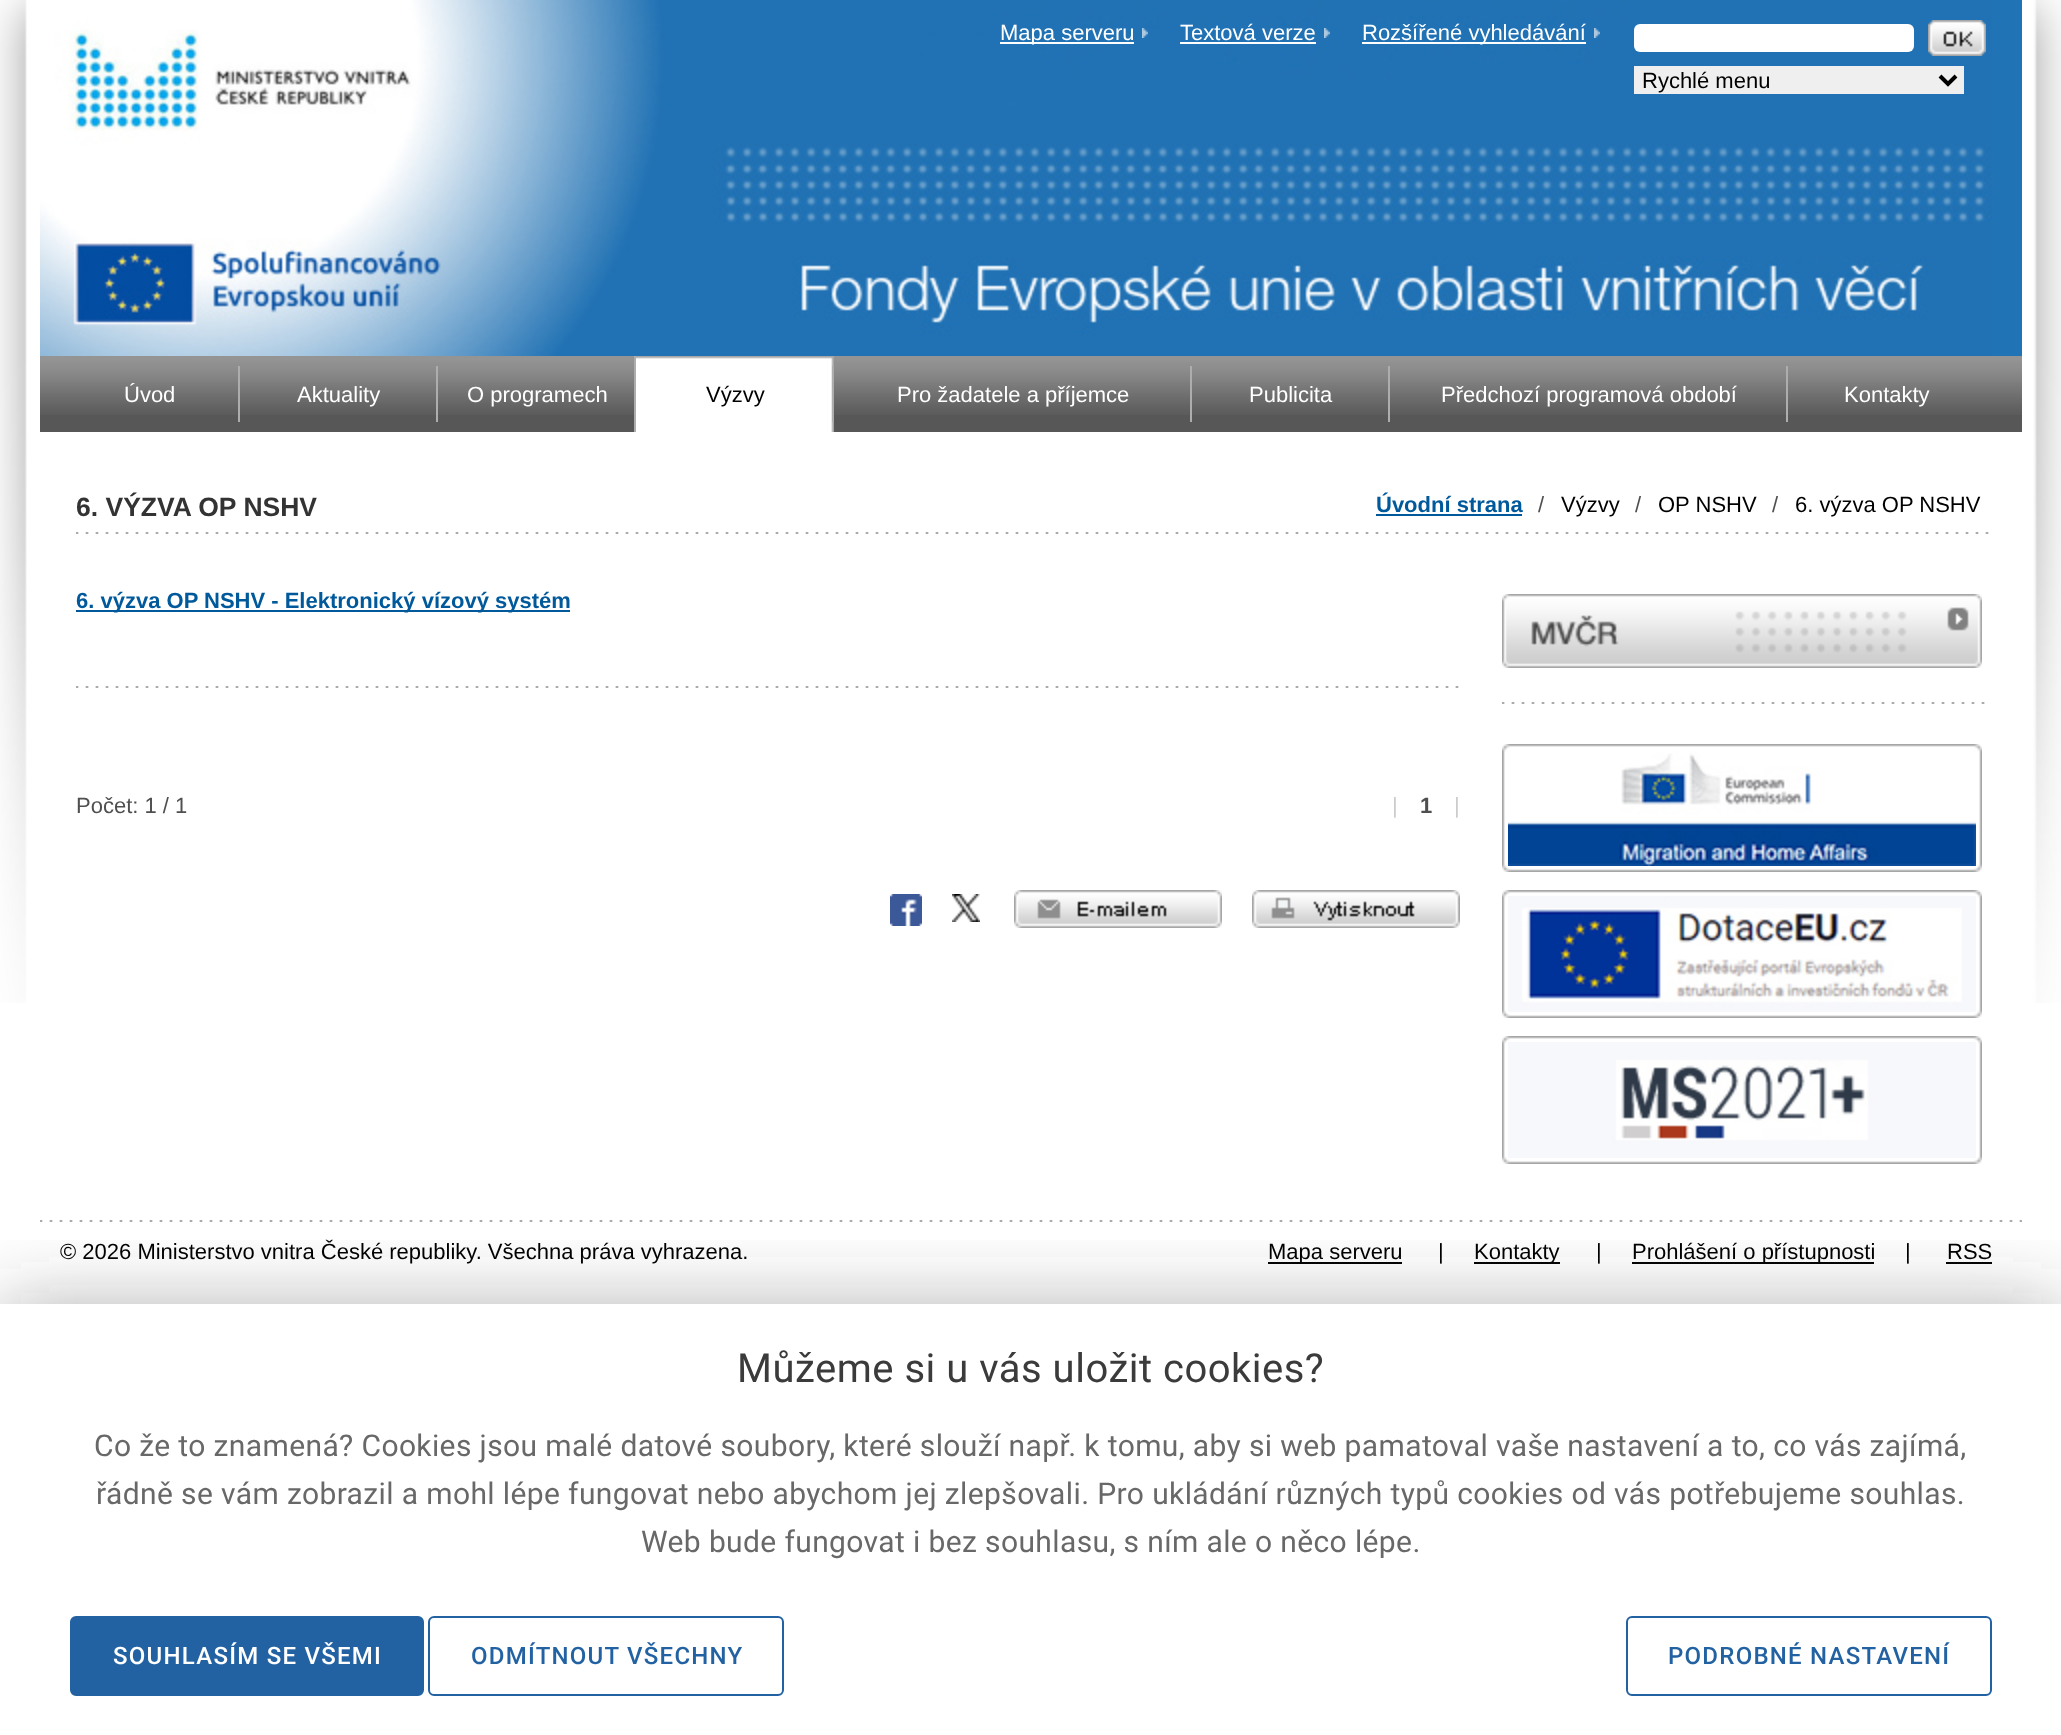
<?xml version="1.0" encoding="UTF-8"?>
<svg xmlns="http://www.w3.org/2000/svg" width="2061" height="1735">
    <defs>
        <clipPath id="clip1"><rect x="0" y="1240" width="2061" height="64"/></clipPath>
        <filter id="blur1" x="-50%" y="-200%" width="200%" height="500%"><feGaussianBlur stdDeviation="40"/></filter>
    </defs>
    <rect width="100%" height="100%" fill="#FFFFFF"/>
    <image x="0" y="0" width="2061" height="1003" href="img_01.png"/>
    <rect x="1992" y="0" width="30" height="356" fill="#2073B5"/>
    <image x="40" y="0" width="1952" height="356" href="img_02.png"/>
    <rect x="1000" y="42" width="134" height="2" fill="#FFFFFF"/>
    <text x="1000" y="40" font-family="Liberation Sans" font-size="22" fill="#FFFFFF">Mapa serveru</text>
    <image x="1142" y="28" width="6" height="10" href="img_03.png"/>
    <text x="1180" y="40" font-family="Liberation Sans" font-size="22" fill="#FFFFFF">Textová verze</text>
    <rect x="1180" y="42" width="136" height="2" fill="#FFFFFF"/>
    <image x="1324" y="28" width="6" height="10" href="img_04.png"/>
    <rect x="1362" y="42" width="224" height="2" fill="#FFFFFF"/>
    <text x="1362" y="40" font-family="Liberation Sans" font-size="22" fill="#FFFFFF">Rozšířené vyhledávání</text>
    <image x="1594" y="28" width="6" height="10" href="img_05.png"/>
    <rect x="1634" y="24" width="280" height="28" rx="6" fill="#FFFFFF"/>
    <image x="1928" y="20" width="58" height="36" href="img_06.png"/>
    <rect x="1634" y="66" width="330" height="28" fill="#EFEFEF"/>
    <path d="M 1940 76 L 1948 84 L 1956 76" fill="none" stroke="#000000" stroke-width="4"/>
    <text x="1642" y="88" font-family="Liberation Sans" font-size="22" fill="#000000">Rychlé menu</text>
    <rect x="40" y="415" width="1982" height="17" fill="#575757"/>
    <image x="40" y="356" width="1982" height="59" href="img_07.png"/>
    <text x="124" y="402" font-family="Liberation Sans" font-size="22" fill="#FFFFFF">Úvod</text>
    <rect x="238" y="366" width="2" height="56" fill="#ADADAD"/>
    <text x="297" y="402" font-family="Liberation Sans" font-size="22" fill="#FFFFFF">Aktuality</text>
    <rect x="436" y="366" width="2" height="56" fill="#ADADAD"/>
    <text x="467" y="402" font-family="Liberation Sans" font-size="22" fill="#FFFFFF">O programech</text>
    <rect x="636" y="357" width="197" height="75" fill="#FFFFFF"/>
    <image x="636" y="356" width="198" height="76" href="img_08.png"/>
    <rect x="634" y="356" width="2" height="76" fill="#ADADAD"/>
    <text x="706" y="402" font-family="Liberation Sans" font-size="22" fill="#000000">Výzvy</text>
    <rect x="832" y="366" width="2" height="56" fill="#ADADAD"/>
    <text x="897" y="402" font-family="Liberation Sans" font-size="22" fill="#FFFFFF">Pro žadatele a příjemce</text>
    <rect x="1190" y="366" width="2" height="56" fill="#ADADAD"/>
    <text x="1249" y="402" font-family="Liberation Sans" font-size="22" fill="#FFFFFF">Publicita</text>
    <rect x="1388" y="366" width="2" height="56" fill="#ADADAD"/>
    <text x="1441" y="402" font-family="Liberation Sans" font-size="22" fill="#FFFFFF">Předchozí programová období</text>
    <rect x="1786" y="366" width="2" height="56" fill="#ADADAD"/>
    <text x="1844" y="402" font-family="Liberation Sans" font-size="22" fill="#FFFFFF">Kontakty</text>
    <image x="76" y="532" width="1913" height="2" href="img_09.png"/>
    <text x="76" y="516" font-family="Liberation Sans" font-size="26.5" font-weight="700" fill="#333333">6. VÝZVA OP NSHV</text>
    <text x="1376" y="512" font-family="Liberation Sans" font-size="22" font-weight="700" fill="#00599B">Úvodní strana</text>
    <rect x="1376" y="514" width="146" height="2" fill="#00599B"/>
    <text x="1538" y="512" font-family="Liberation Sans" font-size="22" fill="#4F4F4F">/</text>
    <text x="1561" y="512" font-family="Liberation Sans" font-size="22" fill="#000000">Výzvy</text>
    <text x="1635" y="512" font-family="Liberation Sans" font-size="22" fill="#4F4F4F">/</text>
    <text x="1658" y="512" font-family="Liberation Sans" font-size="22" fill="#000000">OP NSHV</text>
    <text x="1772" y="512" font-family="Liberation Sans" font-size="22" fill="#4F4F4F">/</text>
    <text x="1795" y="512" font-family="Liberation Sans" font-size="22" fill="#000000">6. výzva OP NSHV</text>
    <image x="76" y="686" width="1383" height="2" href="img_10.png"/>
    <rect x="76" y="610" width="494" height="2" fill="#00599B"/>
    <text x="76" y="608" font-family="Liberation Sans" font-size="22" font-weight="700" fill="#00599B">6. výzva OP NSHV - Elektronický vízový systém</text>
    <text x="76" y="813" font-family="Liberation Sans" font-size="22" fill="#4F4F4F">Počet: 1 / 1</text>
    <text x="1392" y="813" font-family="Liberation Sans" font-size="22" fill="#CCCCCC">|</text>
    <text x="1420" y="813" font-family="Liberation Sans" font-size="22" font-weight="700" fill="#4F4F4F">1</text>
    <text x="1454" y="813" font-family="Liberation Sans" font-size="22" fill="#CCCCCC">|</text>
    <image x="890" y="894" width="32" height="32" href="img_11.png"/>
    <image x="952" y="894" width="28" height="28" href="img_12.png"/>
    <image x="1014" y="890" width="208" height="38" href="img_13.png"/>
    <image x="1252" y="890" width="208" height="38" href="img_14.png"/>
    <image x="1502" y="702" width="483" height="2" href="img_15.png"/>
    <image x="1502" y="594" width="480" height="74" href="img_16.png"/>
    <image x="1502" y="744" width="480" height="128" href="img_17.png"/>
    <image x="1502" y="890" width="480" height="128" href="img_18.png"/>
    <image x="1502" y="1036" width="480" height="128" href="img_19.png"/>
    <image x="40" y="1220" width="1982" height="2" href="img_20.png"/>
    <text x="60" y="1259" font-family="Liberation Sans" font-size="22" fill="#000000">© 2026 Ministerstvo vnitra České republiky. Všechna práva vyhrazena.</text>
    <rect x="1268" y="1262" width="134" height="2" fill="#000000"/>
    <text x="1268" y="1259" font-family="Liberation Sans" font-size="22" fill="#000000">Mapa serveru</text>
    <text x="1438" y="1259" font-family="Liberation Sans" font-size="22" fill="#000000">|</text>
    <rect x="1474" y="1262" width="86" height="2" fill="#000000"/>
    <text x="1474" y="1259" font-family="Liberation Sans" font-size="22" fill="#000000">Kontakty</text>
    <text x="1596" y="1259" font-family="Liberation Sans" font-size="22" fill="#000000">|</text>
    <rect x="1632" y="1262" width="242" height="2" fill="#000000"/>
    <text x="1632" y="1259" font-family="Liberation Sans" font-size="22" fill="#000000">Prohlášení o přístupnosti</text>
    <text x="1905" y="1259" font-family="Liberation Sans" font-size="22" fill="#000000">|</text>
    <text x="1947" y="1259" font-family="Liberation Sans" font-size="22" fill="#000000">RSS</text>
    <rect x="1946" y="1262" width="46" height="2" fill="#000000"/>
    <g clip-path="url(#clip1)">
        <rect x="0" y="1306" width="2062" height="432" fill="#3B3B3B" fill-opacity="0.4" filter="url(#blur1)"/>
    </g>
    <text x="737" y="1382" font-family="Roboto" font-size="40" letter-spacing="0.5" fill="#3B3B3B">Můžeme si u vás uložit cookies?</text>
    <text x="94" y="1456" font-family="Roboto" font-size="30" letter-spacing="0.38" fill="#686868">Co že to znamená? Cookies jsou malé datové soubory, které slouží např. k tomu, aby si web pamatoval vaše nastavení a to, co vás zajímá,</text>
    <text x="96" y="1504" font-family="Roboto" font-size="30" letter-spacing="0.38" fill="#686868">řádně se vám zobrazil a mohl lépe fungovat nebo abychom jej zlepšovali. Pro ukládání různých typů cookies od vás potřebujeme souhlas.</text>
    <text x="641" y="1552" font-family="Roboto" font-size="30" letter-spacing="0.38" fill="#686868">Web bude fungovat i bez souhlasu, s ním ale o něco lépe.</text>
    <rect x="71" y="1617" width="352" height="78" rx="5" fill="#2362A2" stroke="#2362A2" stroke-width="2"/>
    <text x="113" y="1664" font-family="Roboto" font-size="24" font-weight="500" letter-spacing="1.25" fill="#FFFFFF">SOUHLASÍM SE VŠEMI</text>
    <rect x="429" y="1617" width="354" height="78" rx="5" fill="none" stroke="#2362A2" stroke-width="2"/>
    <text x="471" y="1664" font-family="Roboto" font-size="24" font-weight="500" letter-spacing="1.25" fill="#2362A2">ODMÍTNOUT VŠECHNY</text>
    <rect x="1627" y="1617" width="364" height="78" rx="5" fill="none" stroke="#2362A2" stroke-width="2"/>
    <text x="1668" y="1664" font-family="Roboto" font-size="24" font-weight="500" letter-spacing="1.25" fill="#2362A2">PODROBNÉ NASTAVENÍ</text>
</svg>
